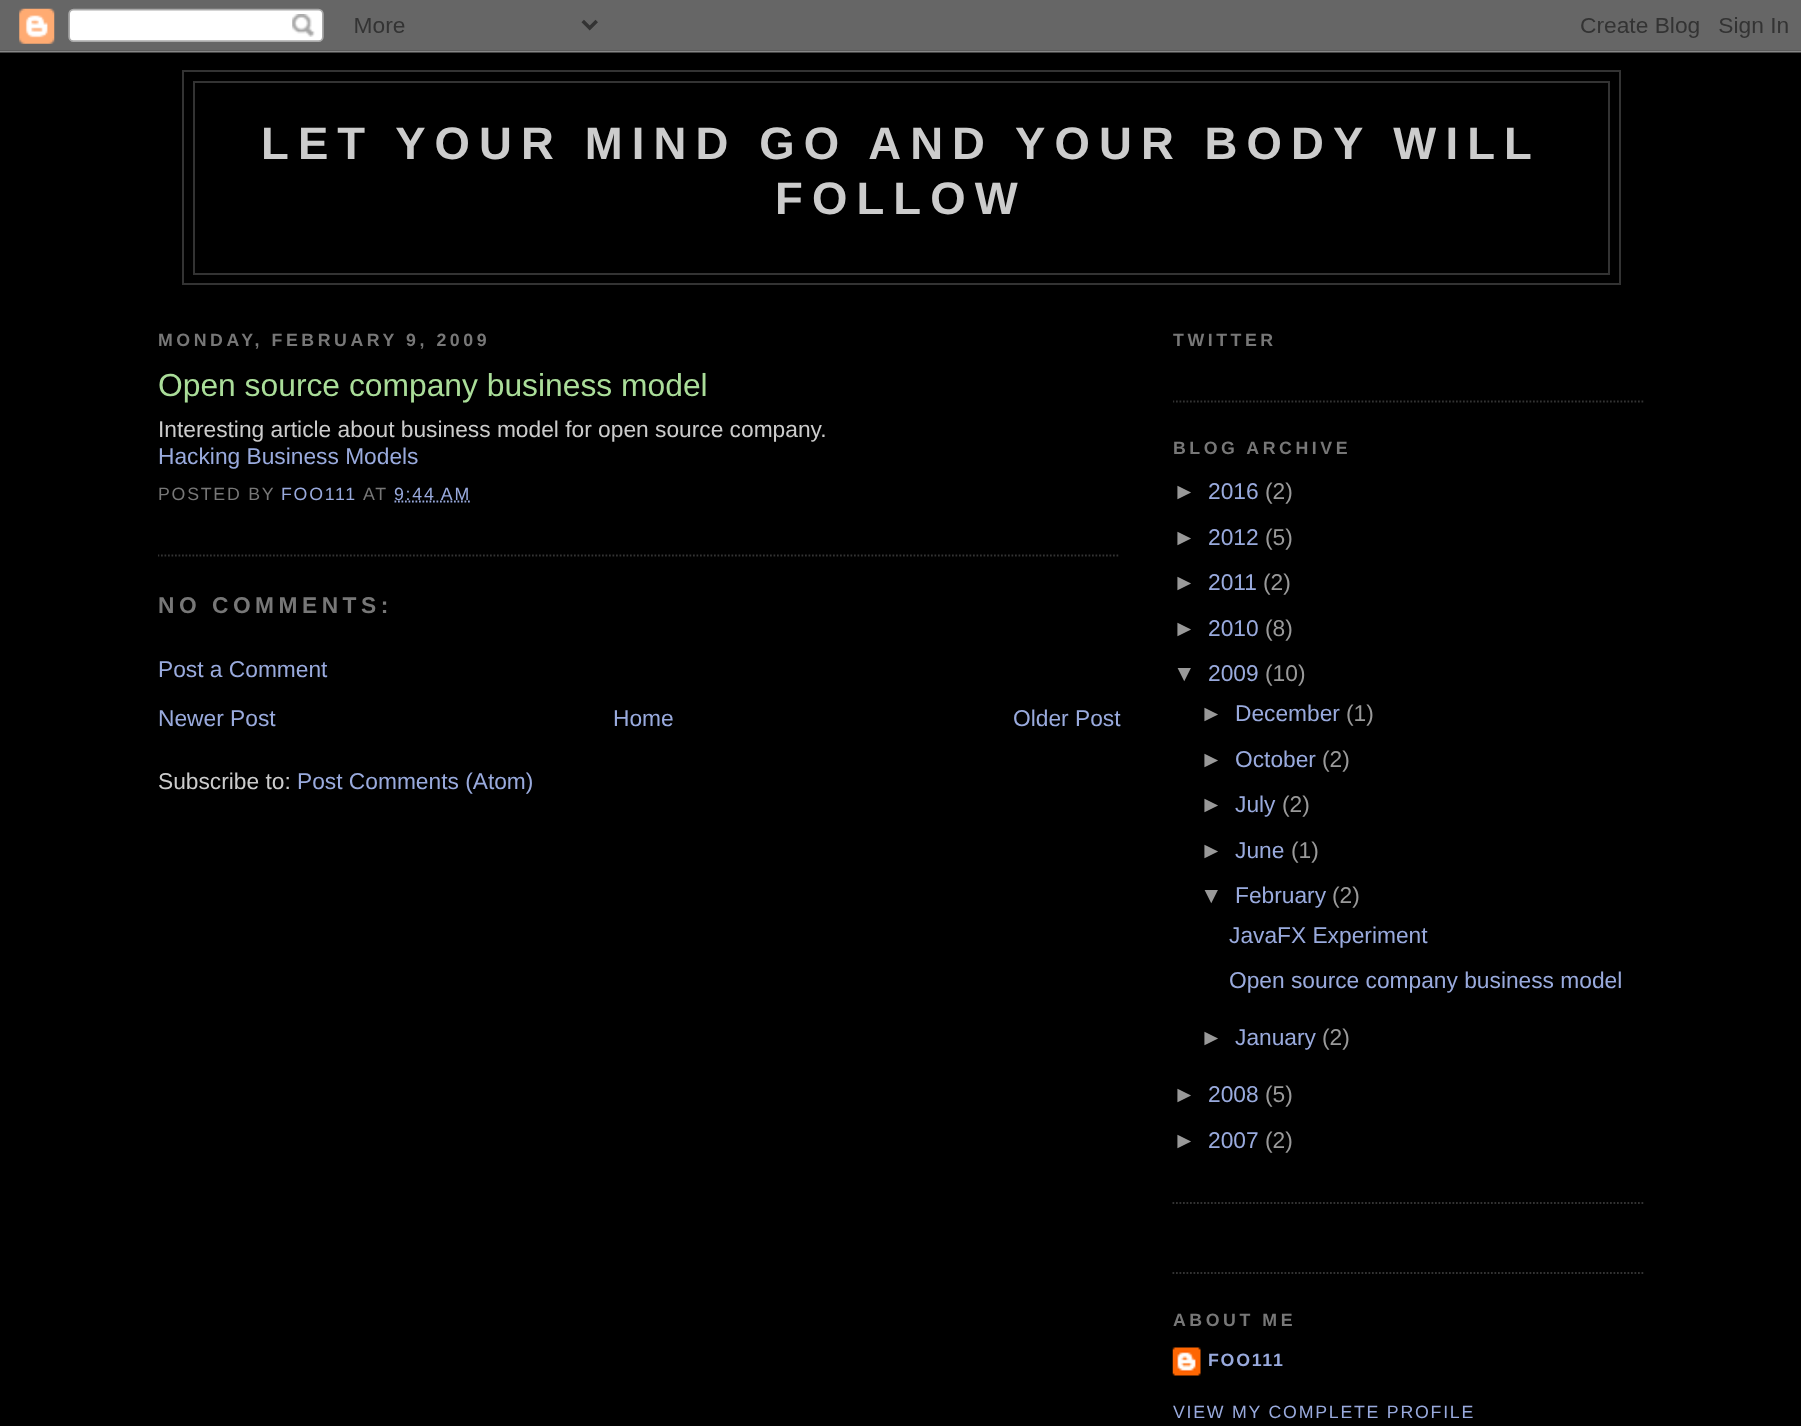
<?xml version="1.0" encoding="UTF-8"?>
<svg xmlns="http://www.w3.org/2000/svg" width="1801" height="1426">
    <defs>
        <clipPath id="clip1"><rect x="158" y="303" width="962" height="576"/></clipPath>
        <clipPath id="clip2"><rect x="1173" y="303" width="472" height="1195"/></clipPath>
    </defs>
    <rect width="100%" height="100%" fill="#000000"/>
    <image x="0" y="0" width="1801" height="53" href="img_01.png"/>
    <rect x="183" y="71" width="1437" height="213" fill="none" stroke="#333333" stroke-width="2"/>
    <rect x="194" y="82" width="1415" height="192" fill="none" stroke="#333333" stroke-width="2"/>
    <text x="261" y="159" font-family="Liberation Sans" font-size="45.5" font-weight="700" letter-spacing="9.1" fill="#CCCCCC">LET YOUR MIND GO AND YOUR BODY WILL</text>
    <text x="775" y="214" font-family="Liberation Sans" font-size="45.5" font-weight="700" letter-spacing="9.1" fill="#CCCCCC">FOLLOW</text>
    <text x="158" y="346" font-family="Liberation Sans" font-size="17.75" font-weight="700" letter-spacing="3.55" fill="#777777">MONDAY, FEBRUARY 9, 2009</text>
    <g clip-path="url(#clip1)">
        <path d="M 157.5 555.5 H 1120" fill="none" stroke="#333333" stroke-width="1.8" stroke-dasharray="1.75 1.75"/>
    </g>
    <text x="158" y="396" font-family="Liberation Sans" font-size="31.8" fill="#AADD99">Open source company business model</text>
    <text x="158" y="437" font-family="Liberation Sans" font-size="22.75" fill="#CCCCCC">Interesting article about business model for open source company.</text>
    <text x="158" y="464" font-family="Liberation Sans" font-size="22.75" fill="#99AADD">Hacking Business Models</text>
    <text x="158" y="500" font-family="Liberation Sans" font-size="17.75" letter-spacing="1.75" fill="#777777">POSTED BY</text>
    <text x="281" y="500" font-family="Liberation Sans" font-size="17.75" letter-spacing="1.75" fill="#99AADD">FOO111</text>
    <text x="363" y="500" font-family="Liberation Sans" font-size="17.75" letter-spacing="1.75" fill="#777777">AT</text>
    <path d="M 394.5 501.5 H 471.5" fill="none" stroke="#99AADD" stroke-width="1.8" stroke-dasharray="1.75 1.75"/>
    <text x="394" y="500" font-family="Liberation Sans" font-size="17.75" letter-spacing="1.75" fill="#99AADD">9:44 AM</text>
    <text x="158" y="613" font-family="Liberation Sans" font-size="22.75" font-weight="700" letter-spacing="4.5" fill="#777777">NO COMMENTS:</text>
    <text x="158" y="677" font-family="Liberation Sans" font-size="22.75" fill="#99AADD">Post a Comment</text>
    <text x="158" y="726" font-family="Liberation Sans" font-size="22.75" fill="#99AADD">Newer Post</text>
    <text x="613" y="726" font-family="Liberation Sans" font-size="22.75" fill="#99AADD">Home</text>
    <text x="1013" y="726" font-family="Liberation Sans" font-size="22.75" fill="#99AADD">Older Post</text>
    <text x="158" y="789" font-family="Liberation Sans" font-size="22.75" fill="#CCCCCC">Subscribe to:</text>
    <text x="297" y="789" font-family="Liberation Sans" font-size="22.75" fill="#99AADD">Post Comments (Atom)</text>
    <g clip-path="url(#clip2)">
        <path d="M 1172.5 401.5 H 1645" fill="none" stroke="#333333" stroke-width="1.8" stroke-dasharray="1.75 1.75"/>
    </g>
    <text x="1173" y="346" font-family="Liberation Sans" font-size="17.75" font-weight="700" letter-spacing="3.55" fill="#777777">TWITTER</text>
    <path d="M 1172.5 1203 H 1645" fill="none" stroke="#333333" stroke-width="1.8" stroke-dasharray="1.75 1.75"/>
    <text x="1173" y="454" font-family="Liberation Sans" font-size="17.75" font-weight="700" letter-spacing="3.55" fill="#777777">BLOG ARCHIVE</text>
    <text x="1173" y="499" font-family="Liberation Sans" font-size="22.75" fill="#999999">►</text>
    <text x="1208" y="499" font-family="Liberation Sans" font-size="22.75" fill="#99AADD">2016</text>
    <text x="1265" y="499" font-family="Liberation Sans" font-size="22.75" fill="#999999">(2)</text>
    <text x="1173" y="545" font-family="Liberation Sans" font-size="22.75" fill="#999999">►</text>
    <text x="1208" y="545" font-family="Liberation Sans" font-size="22.75" fill="#99AADD">2012</text>
    <text x="1265" y="545" font-family="Liberation Sans" font-size="22.75" fill="#999999">(5)</text>
    <text x="1173" y="590" font-family="Liberation Sans" font-size="22.75" fill="#999999">►</text>
    <text x="1208" y="590" font-family="Liberation Sans" font-size="22.75" fill="#99AADD">2011</text>
    <text x="1263" y="590" font-family="Liberation Sans" font-size="22.75" fill="#999999">(2)</text>
    <text x="1173" y="636" font-family="Liberation Sans" font-size="22.75" fill="#999999">►</text>
    <text x="1208" y="636" font-family="Liberation Sans" font-size="22.75" fill="#99AADD">2010</text>
    <text x="1265" y="636" font-family="Liberation Sans" font-size="22.75" fill="#999999">(8)</text>
    <text x="1173" y="681" font-family="Liberation Sans" font-size="22.75" fill="#999999">▼</text>
    <text x="1208" y="681" font-family="Liberation Sans" font-size="22.75" fill="#99AADD">2009</text>
    <text x="1265" y="681" font-family="Liberation Sans" font-size="22.75" fill="#999999">(10)</text>
    <text x="1200" y="721" font-family="Liberation Sans" font-size="22.75" fill="#999999">►</text>
    <text x="1235" y="721" font-family="Liberation Sans" font-size="22.75" fill="#99AADD">December</text>
    <text x="1346" y="721" font-family="Liberation Sans" font-size="22.75" fill="#999999">(1)</text>
    <text x="1200" y="767" font-family="Liberation Sans" font-size="22.75" fill="#999999">►</text>
    <text x="1235" y="767" font-family="Liberation Sans" font-size="22.75" fill="#99AADD">October</text>
    <text x="1322" y="767" font-family="Liberation Sans" font-size="22.75" fill="#999999">(2)</text>
    <text x="1200" y="812" font-family="Liberation Sans" font-size="22.75" fill="#999999">►</text>
    <text x="1235" y="812" font-family="Liberation Sans" font-size="22.75" fill="#99AADD">July</text>
    <text x="1282" y="812" font-family="Liberation Sans" font-size="22.75" fill="#999999">(2)</text>
    <text x="1200" y="858" font-family="Liberation Sans" font-size="22.75" fill="#999999">►</text>
    <text x="1235" y="858" font-family="Liberation Sans" font-size="22.75" fill="#99AADD">June</text>
    <text x="1291" y="858" font-family="Liberation Sans" font-size="22.75" fill="#999999">(1)</text>
    <text x="1200" y="903" font-family="Liberation Sans" font-size="22.75" fill="#999999">▼</text>
    <text x="1235" y="903" font-family="Liberation Sans" font-size="22.75" fill="#99AADD">February</text>
    <text x="1332" y="903" font-family="Liberation Sans" font-size="22.75" fill="#999999">(2)</text>
    <text font-family="Liberation Sans" font-size="22.75" fill="#99AADD">
        <tspan x="1229" y="943">JavaFX Experiment</tspan>
        <tspan x="1229" y="988">Open source company business model</tspan>
    </text>
    <text x="1200" y="1045" font-family="Liberation Sans" font-size="22.75" fill="#999999">►</text>
    <text x="1235" y="1045" font-family="Liberation Sans" font-size="22.75" fill="#99AADD">January</text>
    <text x="1322" y="1045" font-family="Liberation Sans" font-size="22.75" fill="#999999">(2)</text>
    <text x="1173" y="1102" font-family="Liberation Sans" font-size="22.75" fill="#999999">►</text>
    <text x="1208" y="1102" font-family="Liberation Sans" font-size="22.75" fill="#99AADD">2008</text>
    <text x="1265" y="1102" font-family="Liberation Sans" font-size="22.75" fill="#999999">(5)</text>
    <text x="1173" y="1148" font-family="Liberation Sans" font-size="22.75" fill="#999999">►</text>
    <text x="1208" y="1148" font-family="Liberation Sans" font-size="22.75" fill="#99AADD">2007</text>
    <text x="1265" y="1148" font-family="Liberation Sans" font-size="22.75" fill="#999999">(2)</text>
    <path d="M 1172.5 1273 H 1645" fill="none" stroke="#333333" stroke-width="1.8" stroke-dasharray="1.75 1.75"/>
    <text x="1173" y="1326" font-family="Liberation Sans" font-size="17.75" font-weight="700" letter-spacing="3.55" fill="#777777">ABOUT ME</text>
    <image x="1172" y="1347" width="29" height="29" href="img_02.png"/>
    <text x="1208" y="1366" font-family="Liberation Sans" font-size="17.75" font-weight="700" letter-spacing="1.75" fill="#99AADD">FOO111</text>
    <text x="1173" y="1418" font-family="Liberation Sans" font-size="17.75" letter-spacing="1.75" fill="#99AADD">VIEW MY COMPLETE PROFILE</text>
</svg>
